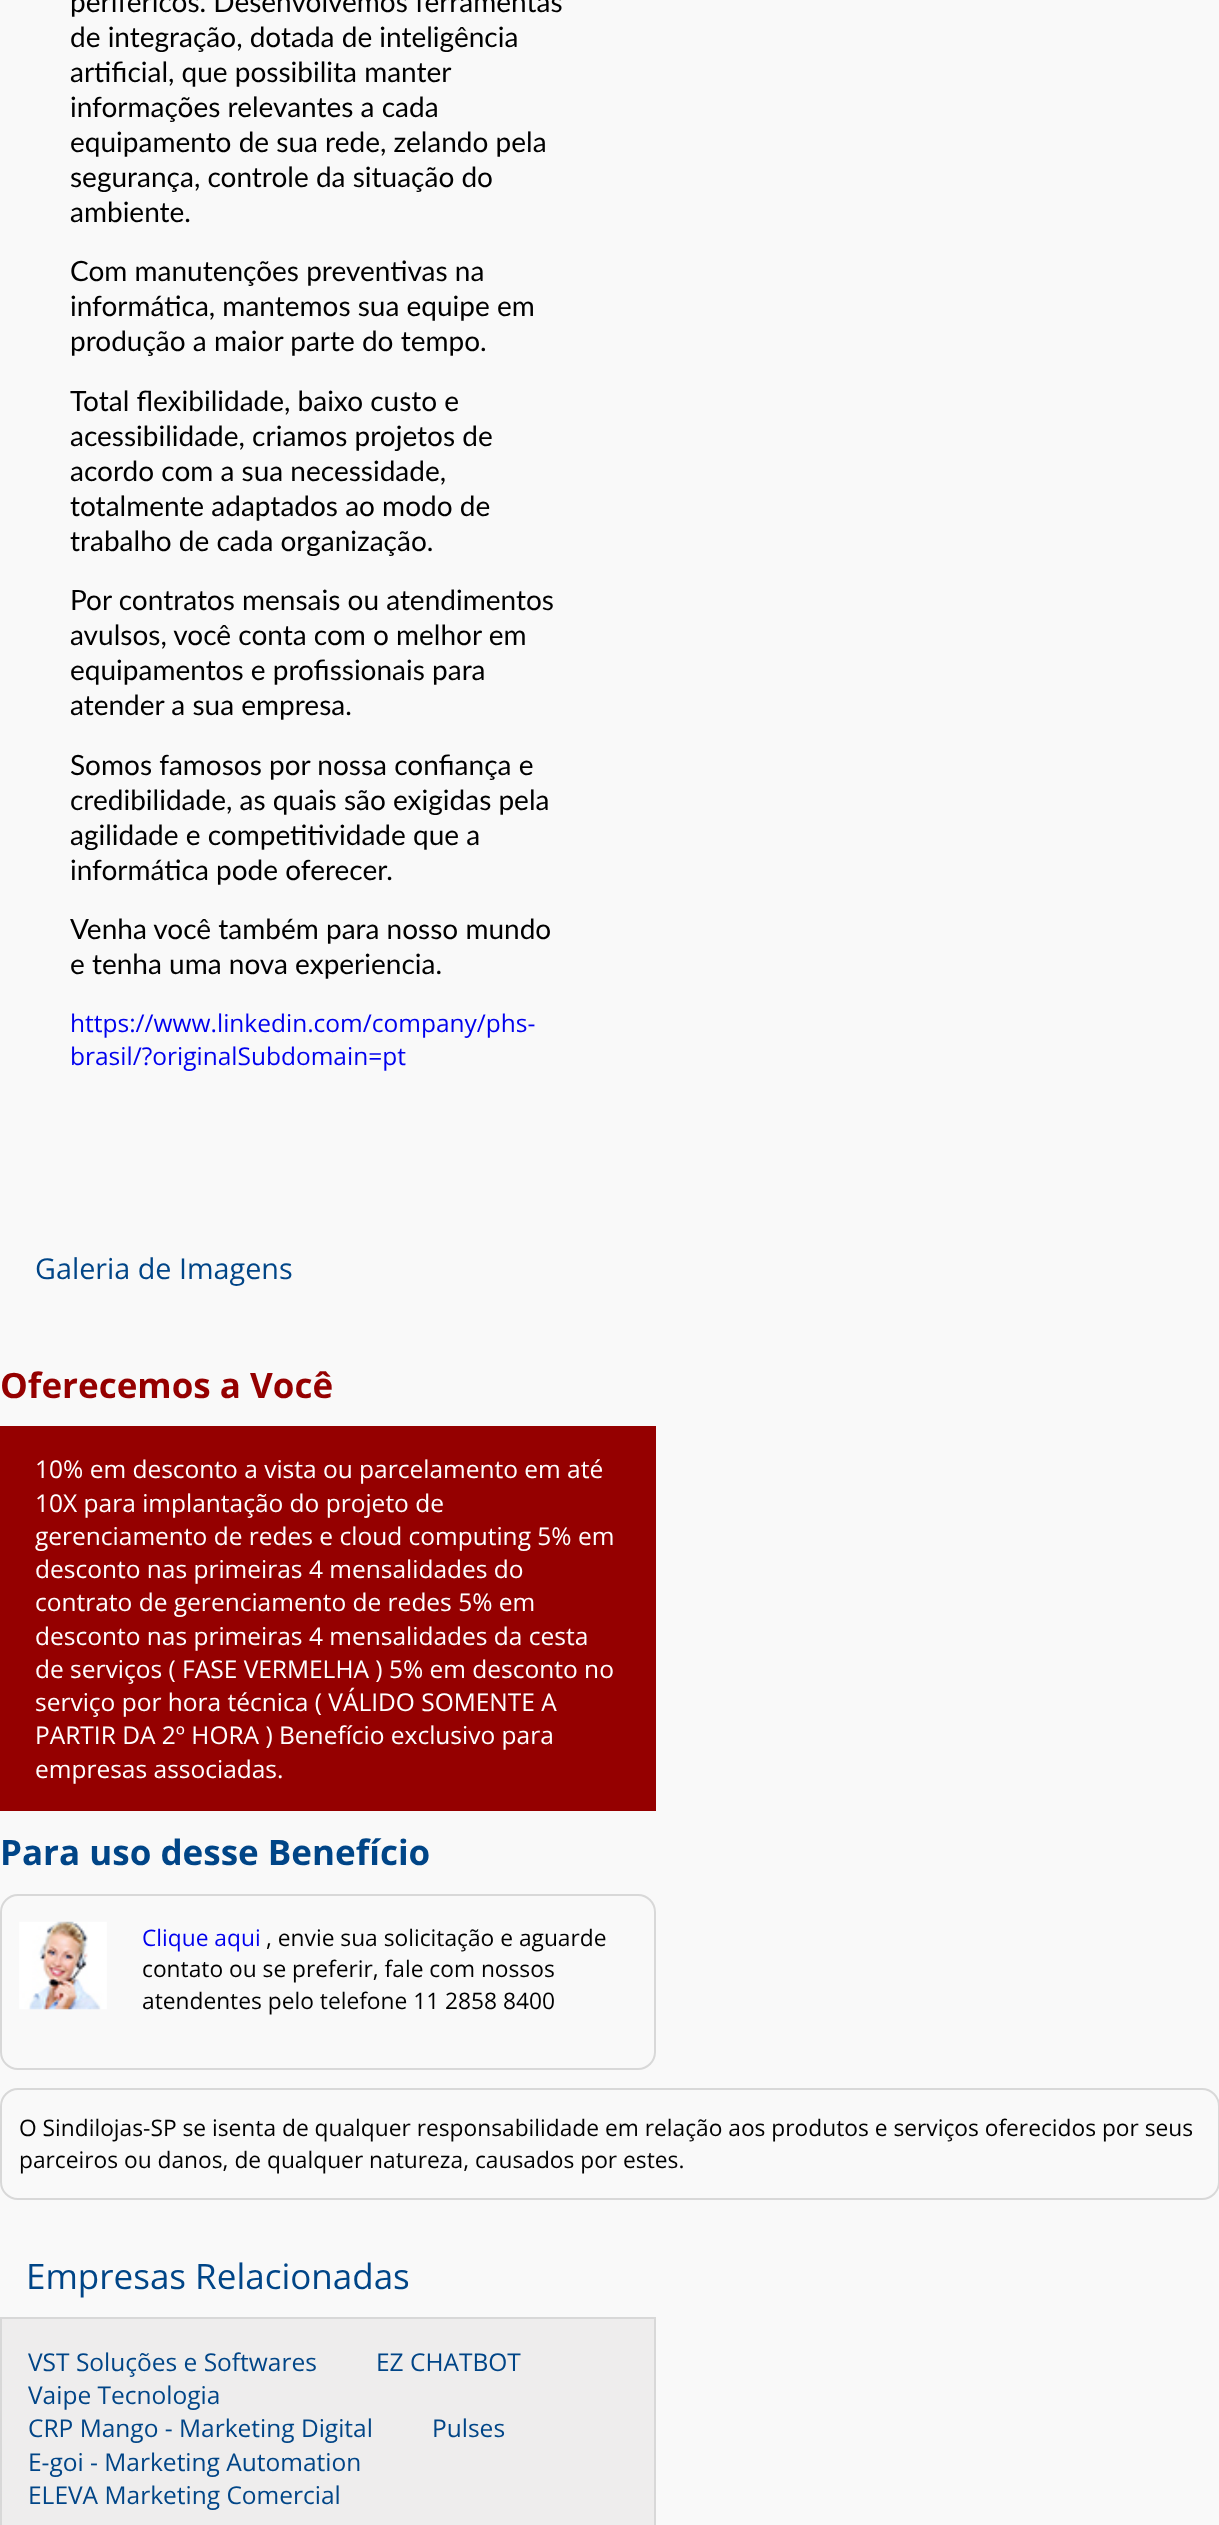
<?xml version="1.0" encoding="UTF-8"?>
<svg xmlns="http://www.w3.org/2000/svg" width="1219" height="2525">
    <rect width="100%" height="100%" fill="#F9F9F9"/>
    <text font-family="Lato" font-size="28" fill="#000000">
        <tspan x="70" y="12">periféricos. Desenvolvemos ferramentas</tspan>
        <tspan x="70" y="47">de integração, dotada de inteligência</tspan>
        <tspan x="70" y="82">artificial, que possibilita manter</tspan>
        <tspan x="70" y="117">informações relevantes a cada</tspan>
        <tspan x="70" y="152">equipamento de sua rede, zelando pela</tspan>
        <tspan x="70" y="187">segurança, controle da situação do</tspan>
        <tspan x="70" y="222">ambiente.</tspan>
    </text>
    <text font-family="Lato" font-size="28" fill="#000000">
        <tspan x="70" y="281">Com manutenções preventivas na</tspan>
        <tspan x="70" y="316">informática, mantemos sua equipe em</tspan>
        <tspan x="70" y="351">produção a maior parte do tempo.</tspan>
    </text>
    <text font-family="Lato" font-size="28" fill="#000000">
        <tspan x="70" y="411">Total flexibilidade, baixo custo e</tspan>
        <tspan x="70" y="446">acessibilidade, criamos projetos de</tspan>
        <tspan x="70" y="481">acordo com a sua necessidade,</tspan>
        <tspan x="70" y="516">totalmente adaptados ao modo de</tspan>
        <tspan x="70" y="551">trabalho de cada organização.</tspan>
    </text>
    <text font-family="Lato" font-size="28" fill="#000000">
        <tspan x="70" y="610">Por contratos mensais ou atendimentos</tspan>
        <tspan x="70" y="645">avulsos, você conta com o melhor em</tspan>
        <tspan x="70" y="680">equipamentos e profissionais para</tspan>
        <tspan x="70" y="715">atender a sua empresa.</tspan>
    </text>
    <text font-family="Lato" font-size="28" fill="#000000">
        <tspan x="70" y="775">Somos famosos por nossa confiança e</tspan>
        <tspan x="70" y="810">credibilidade, as quais são exigidas pela</tspan>
        <tspan x="70" y="845">agilidade e competitividade que a</tspan>
        <tspan x="70" y="880">informática pode oferecer.</tspan>
    </text>
    <text font-family="Lato" font-size="28" fill="#000000">
        <tspan x="70" y="939">Venha você também para nosso mundo</tspan>
        <tspan x="70" y="974">e tenha uma nova experiencia.</tspan>
    </text>
    <text font-family="Open Sans" font-size="24.5" fill="#0000EE">
        <tspan x="70" y="1032">https://www.linkedin.com/company/phs-</tspan>
        <tspan x="70" y="1065">brasil/?originalSubdomain=pt</tspan>
    </text>
    <text x="35" y="1279" font-family="Open Sans" font-size="28.75" fill="#004587">Galeria de Imagens</text>
    <text x="0" y="1398" font-family="Open Sans" font-size="35" font-weight="700" fill="#950000">Oferecemos a Você</text>
    <rect x="0" y="1426" width="656" height="385" fill="#950000"/>
    <text font-family="Open Sans" font-size="24.5" fill="#FFFFFF">
        <tspan x="35" y="1478">10% em desconto a vista ou parcelamento em até</tspan>
        <tspan x="35" y="1512">10X para implantação do projeto de</tspan>
        <tspan x="35" y="1545">gerenciamento de redes e cloud computing 5% em</tspan>
        <tspan x="35" y="1578">desconto nas primeiras 4 mensalidades do</tspan>
        <tspan x="35" y="1611">contrato de gerenciamento de redes 5% em</tspan>
        <tspan x="35" y="1645">desconto nas primeiras 4 mensalidades da cesta</tspan>
        <tspan x="35" y="1678">de serviços ( FASE VERMELHA ) 5% em desconto no</tspan>
        <tspan x="35" y="1711">serviço por hora técnica ( VÁLIDO SOMENTE A</tspan>
        <tspan x="35" y="1744">PARTIR DA 2º HORA ) Benefício exclusivo para</tspan>
        <tspan x="35" y="1778">empresas associadas.</tspan>
    </text>
    <text x="0" y="1865" font-family="Open Sans" font-size="35" font-weight="700" fill="#004587">Para uso desse Benefício</text>
    <rect x="1" y="1895" width="654" height="174" rx="17" fill="none" stroke="#D8D8D8" stroke-width="2"/>
    <image x="19" y="1921" width="88" height="89" href="img_01.png"/>
    <text x="142" y="1946" font-family="Open Sans" font-size="22.75" fill="#0000EE">Clique aqui</text>
    <text x="266" y="1946" font-family="Open Sans" font-size="22.75" fill="#000000">, envie sua solicitação e aguarde</text>
    <text font-family="Open Sans" font-size="22.75" fill="#000000">
        <tspan x="142" y="1977">contato ou se preferir, fale com nossos</tspan>
        <tspan x="142" y="2009">atendentes pelo telefone 11 2858 8400</tspan>
    </text>
    <rect x="1" y="2089" width="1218" height="110" rx="17" fill="none" stroke="#D8D8D8" stroke-width="2"/>
    <text font-family="Open Sans" font-size="22.75" fill="#000000">
        <tspan x="19" y="2136">O Sindilojas-SP se isenta de qualquer responsabilidade em relação aos produtos e serviços oferecidos por seus</tspan>
        <tspan x="19" y="2168">parceiros ou danos, de qualquer natureza, causados por estes.</tspan>
    </text>
    <text x="26" y="2289" font-family="Open Sans" font-size="35" fill="#004587">Empresas Relacionadas</text>
    <rect x="1" y="2318" width="654" height="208" fill="#EEEDED" stroke="#D8D8D8" stroke-width="2"/>
    <text x="28" y="2371" font-family="Open Sans" font-size="24.5" fill="#004587">VST Soluções e Softwares</text>
    <text x="376" y="2371" font-family="Open Sans" font-size="24.5" fill="#004587">EZ CHATBOT</text>
    <text font-family="Open Sans" font-size="24.5" fill="#004587">
        <tspan x="28" y="2404">Vaipe Tecnologia</tspan>
        <tspan x="28" y="2437">CRP Mango - Marketing Digital</tspan>
    </text>
    <text x="432" y="2437" font-family="Open Sans" font-size="24.5" fill="#004587">Pulses</text>
    <text font-family="Open Sans" font-size="24.5" fill="#004587">
        <tspan x="28" y="2471">E-goi - Marketing Automation</tspan>
        <tspan x="28" y="2504">ELEVA Marketing Comercial</tspan>
    </text>
</svg>
